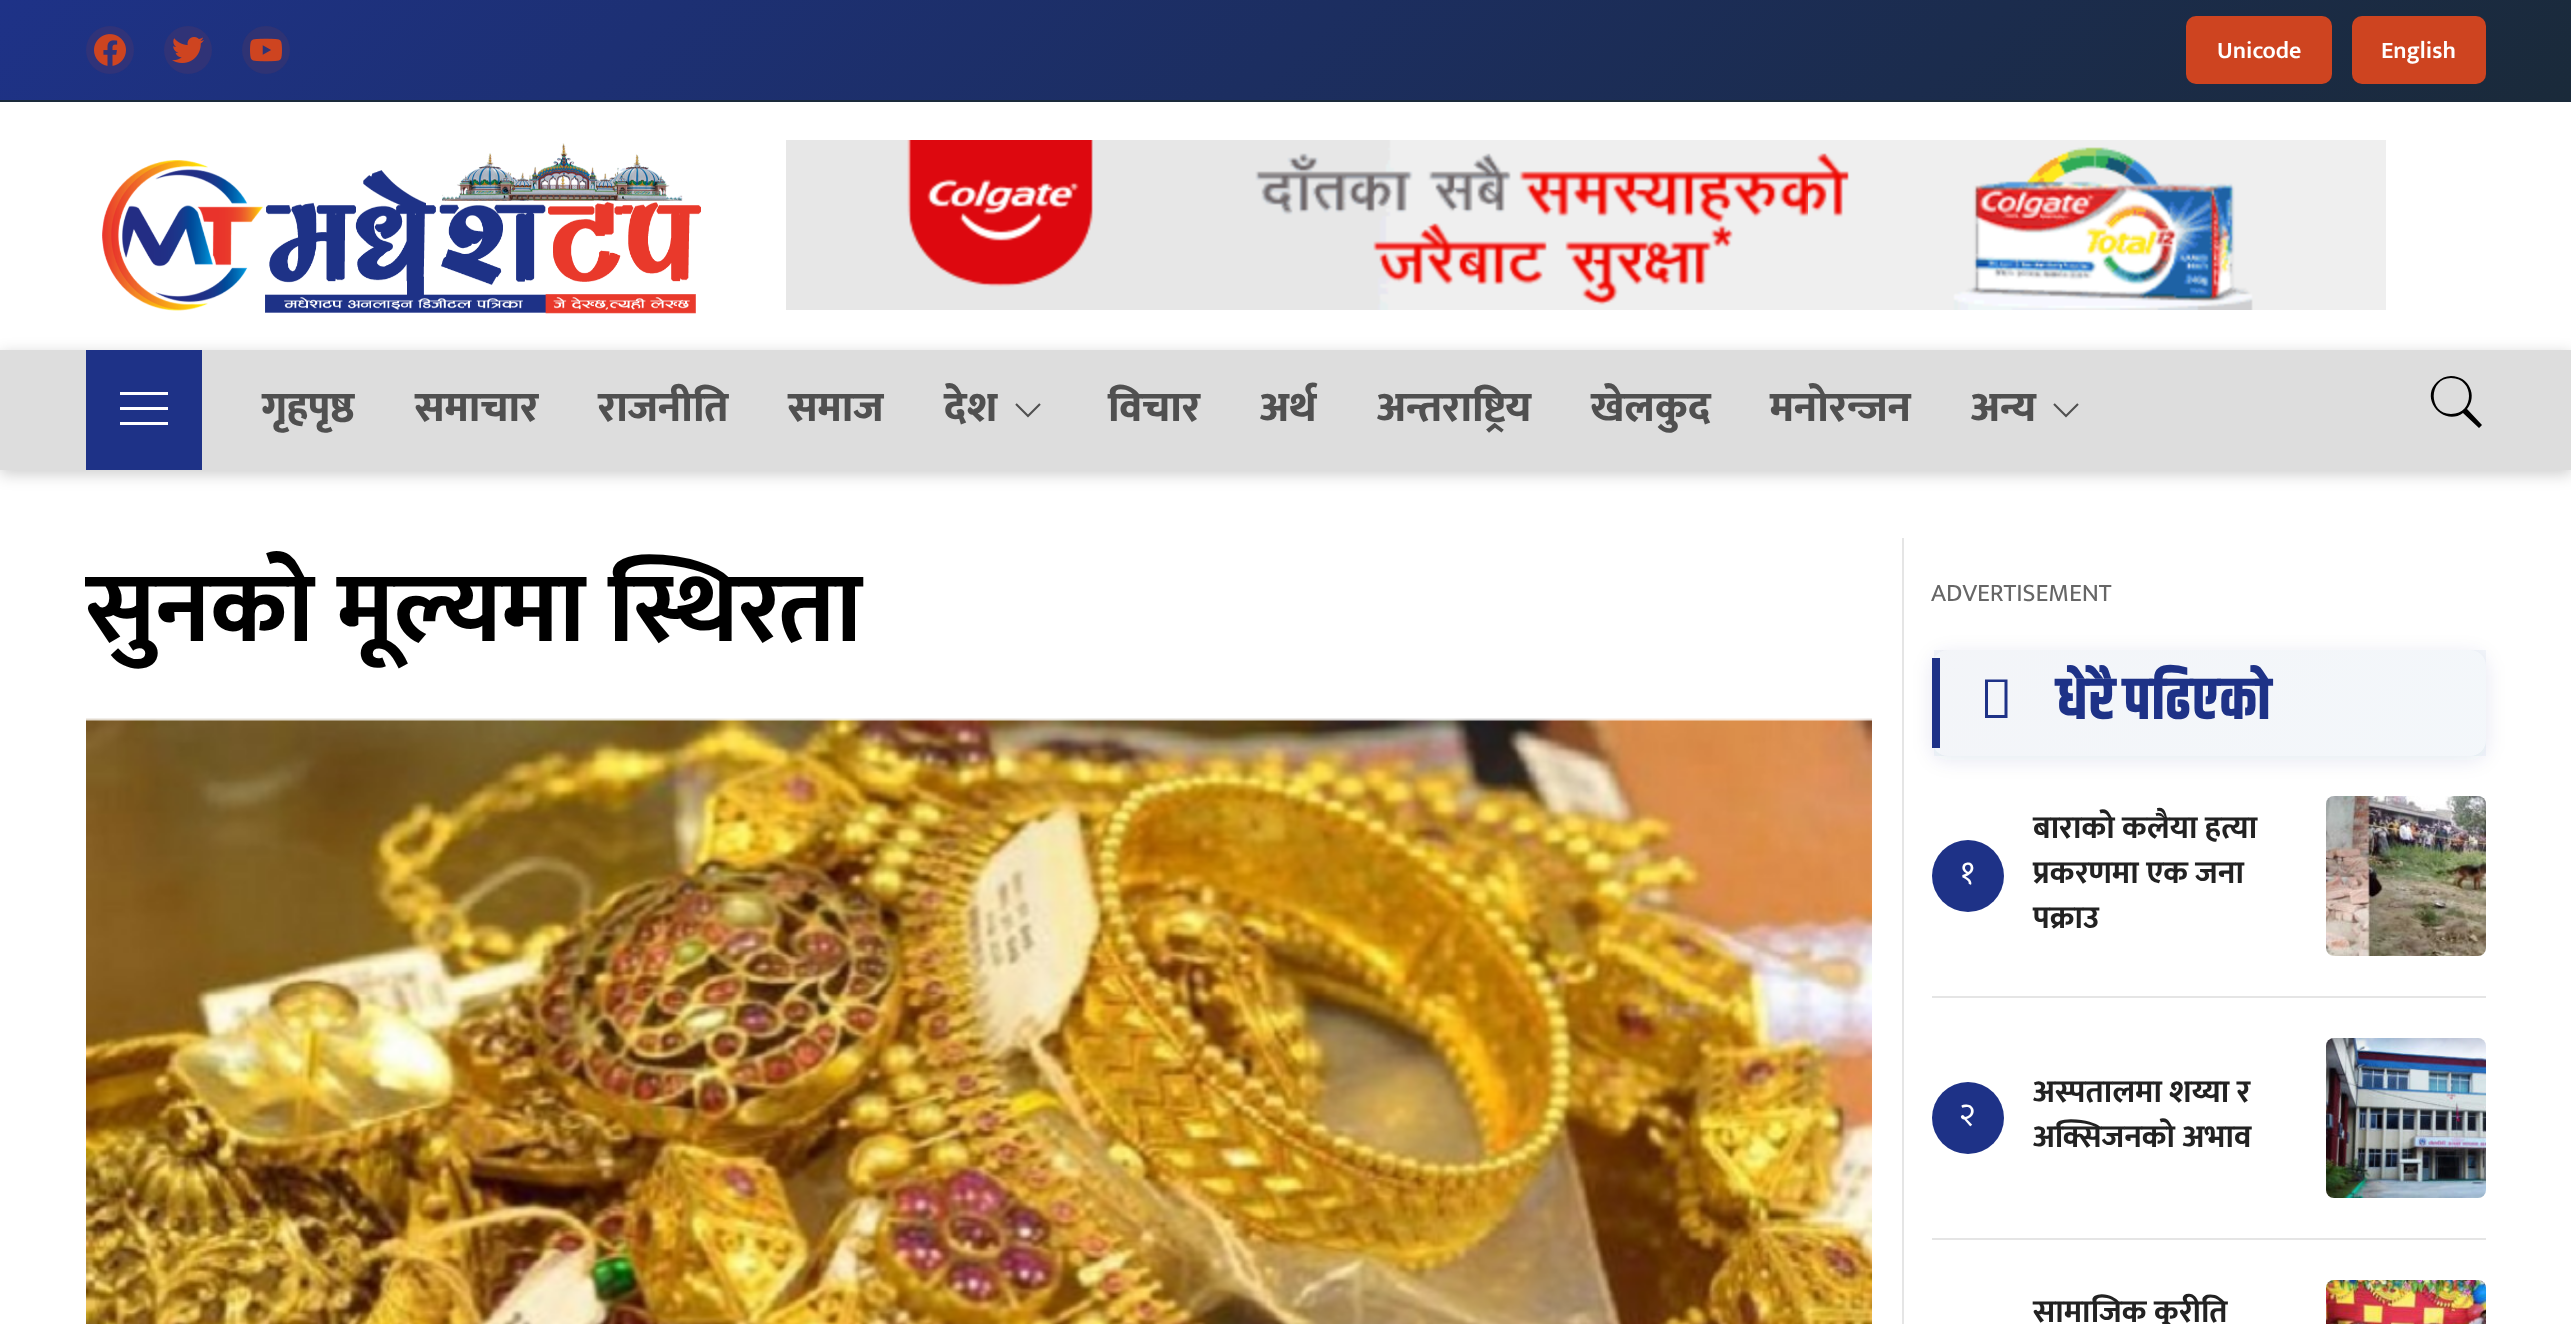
<?xml version="1.0" encoding="UTF-8"?>
<svg xmlns="http://www.w3.org/2000/svg" width="2571" height="1324">
    <defs>
        <linearGradient id="g1" gradientUnits="userSpaceOnUse" x1="618" y1="-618" x2="1954" y2="718"><stop offset="0" stop-color="#1E3287"/><stop offset="1" stop-color="#1A2A3A"/></linearGradient>
        <filter id="blur1" x="-50%" y="-200%" width="200%" height="500%"><feGaussianBlur stdDeviation="8"/></filter>
        <clipPath id="clip1"><path d="M 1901 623 H 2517 V 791 H 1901 Z M 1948 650 H 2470 C 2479 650 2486 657 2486 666 V 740 C 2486 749 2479 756 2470 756 H 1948 C 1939 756 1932 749 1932 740 V 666 C 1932 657 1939 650 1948 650 Z" clip-rule="evenodd"/></clipPath>
        <filter id="blur2" x="-50%" y="-200%" width="200%" height="500%"><feGaussianBlur stdDeviation="10"/></filter>
        <linearGradient id="g2" gradientUnits="userSpaceOnUse" x1="1504" y1="540" x2="1830" y2="866"><stop offset="0" stop-color="#0E337A" stop-opacity="0.05"/><stop offset="1" stop-color="#1C65A8" stop-opacity="0.05"/></linearGradient>
        <linearGradient id="g3" gradientUnits="userSpaceOnUse" x1="2050" y1="540" x2="2376" y2="866"><stop offset="0" stop-color="#0E337A" stop-opacity="0.05"/><stop offset="1" stop-color="#1C65A8" stop-opacity="0.05"/></linearGradient>
    </defs>
    <rect width="100%" height="100%" fill="#FFFFFF"/>
    <rect x="0" y="0" width="2571" height="100" fill="url(#g1)"/>
    <rect x="0" y="100" width="2571" height="2" fill="#1A2A3A"/>
    <circle cx="110" cy="50" r="24" fill="#303379"/>
    <image x="94" y="34" width="32" height="32" href="img_01.png"/>
    <circle cx="188" cy="50" r="24" fill="#303377"/>
    <image x="172" y="37" width="32" height="26" href="img_02.png"/>
    <circle cx="266" cy="50" r="24" fill="#2F3374"/>
    <image x="250" y="38" width="32" height="24" href="img_03.png"/>
    <rect x="2186" y="16" width="146" height="68" rx="10" fill="#CE4420"/>
    <text x="2217" y="58" font-family="Mukta" font-size="24" font-weight="600" fill="#FFFFFF">Unicode</text>
    <rect x="2352" y="16" width="134" height="68" rx="10" fill="#CE4420"/>
    <text x="2381" y="58" font-family="Mukta" font-size="24" font-weight="600" fill="#FFFFFF">English</text>
    <image x="102" y="143" width="599" height="171" href="img_04.png"/>
    <image x="786" y="140" width="1600" height="170" href="img_05.png"/>
    <rect x="0" y="354" width="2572" height="120" fill="#000000" fill-opacity="0.2" filter="url(#blur1)"/>
    <rect x="0" y="350" width="2571" height="120" fill="#DDDDDD"/>
    <rect x="86" y="350" width="116" height="120" fill="#1E3287"/>
    <rect x="120" y="392" width="48" height="3" fill="#FFFFFF"/>
    <rect x="120" y="407" width="48" height="3" fill="#FFFFFF"/>
    <rect x="120" y="422" width="48" height="3" fill="#FFFFFF"/>
    <text x="262" y="421" font-family="Mukta" font-size="42" font-weight="800" fill="#505050">गृहपृष्ठ</text>
    <text x="415" y="421" font-family="Mukta" font-size="42" font-weight="800" fill="#505050">समाचार</text>
    <text x="598" y="421" font-family="Mukta" font-size="42" font-weight="800" fill="#505050">राजनीति</text>
    <text x="788" y="421" font-family="Mukta" font-size="42" font-weight="800" fill="#505050">समाज</text>
    <text x="944" y="421" font-family="Mukta" font-size="42" font-weight="800" fill="#505050">देश</text>
    <path d="M 1040 404 L 1028 416 L 1016 404" fill="none" stroke="#505050" stroke-width="2.1"/>
    <text x="1108" y="421" font-family="Mukta" font-size="42" font-weight="800" fill="#505050">विचार</text>
    <text x="1260" y="421" font-family="Mukta" font-size="42" font-weight="800" fill="#505050">अर्थ</text>
    <text x="1377" y="421" font-family="Mukta" font-size="42" font-weight="800" fill="#505050">अन्तराष्ट्रिय</text>
    <text x="1591" y="421" font-family="Mukta" font-size="42" font-weight="800" fill="#505050">खेलकुद</text>
    <text x="1770" y="421" font-family="Mukta" font-size="42" font-weight="800" fill="#505050">मनोरन्जन</text>
    <text x="1971" y="421" font-family="Mukta" font-size="42" font-weight="800" fill="#505050">अन्य</text>
    <path d="M 2078 404 L 2066 416 L 2054 404" fill="none" stroke="#505050" stroke-width="2.1"/>
    <path d="M 2451 376 C 2446 376 2441 378 2437 382 C 2419 399 2444 427 2463 413 L 2479 428 L 2482 425 L 2467 409 C 2478 396 2469 376 2451 376 Z M 2451 378 C 2475 378 2475 414 2451 414 C 2428 414 2428 378 2451 378 Z" fill="#000000"/>
    <text x="86" y="641" font-family="Mukta" font-size="100" font-weight="700" fill="#000000">सुनको मूल्यमा स्थिरता</text>
    <image x="86" y="718" width="1786" height="606" href="img_06.png"/>
    <rect x="1902" y="538" width="2" height="786" fill="#E5E5E5"/>
    <text x="1931" y="601" font-family="Mukta" font-size="25.5" fill="#666666">ADVERTISEMENT</text>
    <g clip-path="url(#clip1)">
        <rect x="1932" y="654" width="554" height="106" rx="16" fill="#0E337A" fill-opacity="0.1" filter="url(#blur2)"/>
    </g>
    <rect x="1934" y="650" width="6" height="106" fill="url(#g2)"/>
    <rect x="1940" y="650" width="546" height="106" fill="url(#g3)"/>
    <rect x="1932" y="658" width="8" height="90" fill="#1E3287"/>
    <path d="M 1985 718 V 679.5 H 2007.5 V 718 Z M 1988 715 H 2004.5 V 682 H 1988 Z" fill="#1E3287"/>
    <text x="2057" y="719" word-spacing="-4" font-family="Khand" font-size="60" font-weight="700" letter-spacing="1" fill="#1E3287">धेरै पढिएको</text>
    <circle cx="1968" cy="876" r="36" fill="#1E3287"/>
    <text x="1960" y="883" font-family="Mukta" font-size="32" fill="#FFFFFF">१</text>
    <text font-family="Mukta" font-size="32" font-weight="700" fill="#222222">
        <tspan x="2033" y="838">बाराको कलैया हत्या</tspan>
        <tspan x="2033" y="883">प्रकरणमा एक जना</tspan>
        <tspan x="2033" y="928">पक्राउ</tspan>
    </text>
    <image x="2326" y="796" width="160" height="160" href="img_07.png"/>
    <rect x="1932" y="996" width="554" height="2" fill="#E5E5E5"/>
    <circle cx="1968" cy="1118" r="36" fill="#1E3287"/>
    <text x="1959" y="1125" font-family="Mukta" font-size="32" fill="#FFFFFF">२</text>
    <text font-family="Mukta" font-size="32" font-weight="700" fill="#222222">
        <tspan x="2033" y="1102">अस्पतालमा शय्या र</tspan>
        <tspan x="2033" y="1147">अक्सिजनको अभाव</tspan>
    </text>
    <image x="2326" y="1038" width="160" height="160" href="img_08.png"/>
    <rect x="1932" y="1238" width="554" height="2" fill="#E5E5E5"/>
    <text x="2033" y="1322" font-family="Mukta" font-size="32" font-weight="700" fill="#222222">सामाजिक कुरीति</text>
    <image x="2326" y="1280" width="160" height="44" href="img_09.png"/>
</svg>
